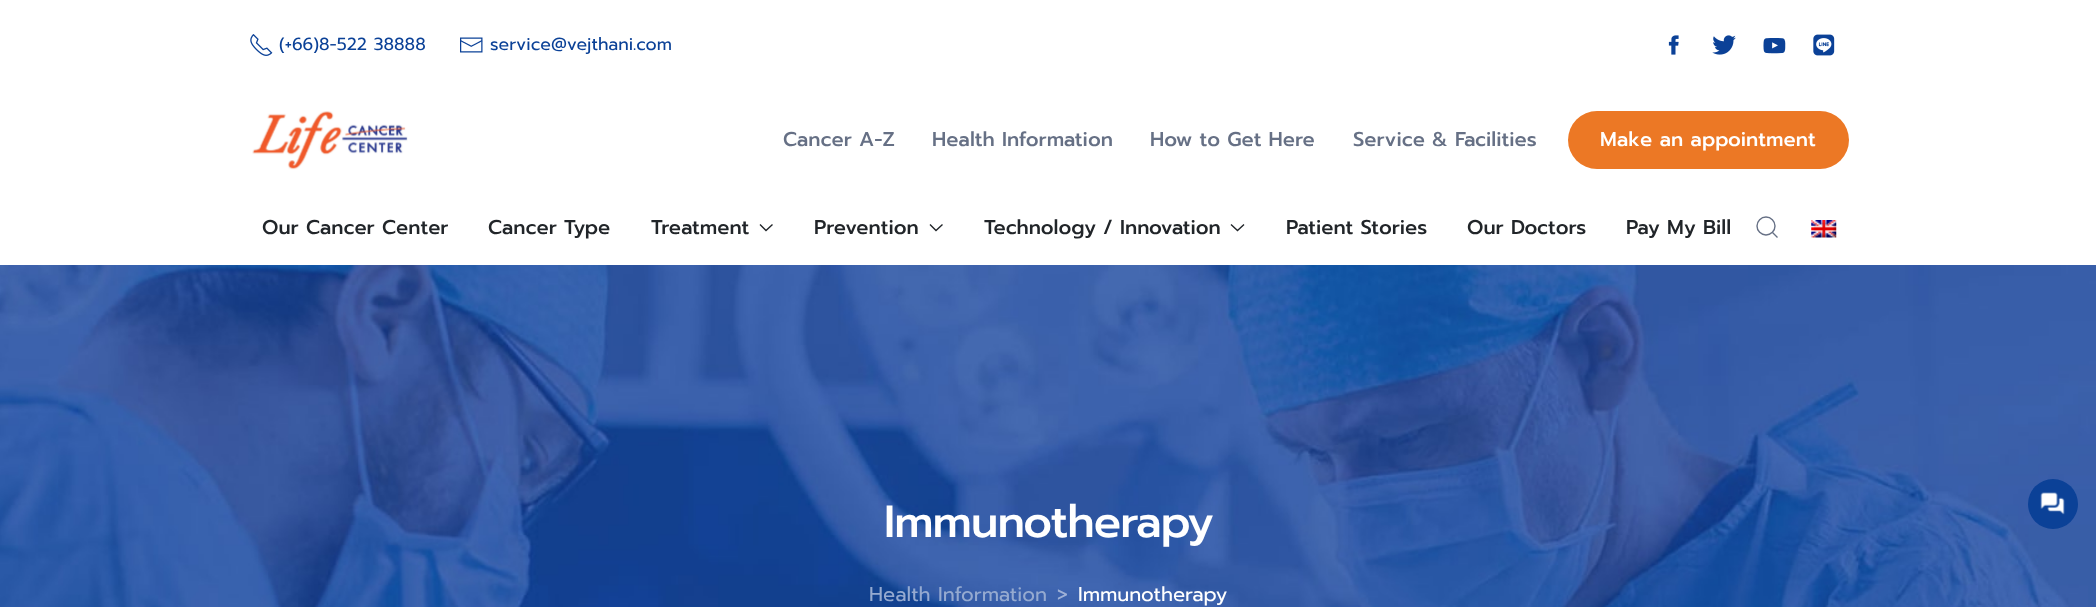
<?xml version="1.0" encoding="UTF-8"?>
<svg xmlns="http://www.w3.org/2000/svg" width="2096" height="607">
    <rect width="100%" height="100%" fill="#FFFFFF"/>
    <image x="250" y="34" width="23" height="22" href="img_01.png"/>
    <text x="279" y="50" font-family="Prompt" font-size="17.5" fill="#0B4197">(+66)8-522 38888</text>
    <image x="460" y="37" width="23" height="16" href="img_02.png"/>
    <text x="490" y="50" font-family="Prompt" font-size="17.5" fill="#0B4197">service@vejthani.com</text>
    <image x="1668" y="35" width="11" height="20" href="img_03.png"/>
    <image x="1712" y="35" width="24" height="20" href="img_04.png"/>
    <image x="1763" y="38" width="23" height="16" href="img_05.png"/>
    <image x="1813" y="34" width="22" height="22" href="img_06.png"/>
    <image x="252" y="111" width="156" height="59" href="img_07.png"/>
    <text x="783" y="146" font-family="Prompt" font-size="20" font-weight="500" fill="#667085">Cancer A-Z</text>
    <text x="932" y="146" font-family="Prompt" font-size="20" font-weight="500" fill="#667085">Health Information</text>
    <text x="1150" y="146" font-family="Prompt" font-size="20" font-weight="500" fill="#667085">How to Get Here</text>
    <text x="1353" y="146" font-family="Prompt" font-size="20" font-weight="500" fill="#667085">Service &amp; Facilities</text>
    <rect x="1568" y="111" width="281" height="58" rx="29" fill="#EC7825"/>
    <text x="1600" y="146" font-family="Prompt" font-size="20" font-weight="500" fill="#FFFFFF">Make an appointment</text>
    <text x="262" y="234" font-family="Prompt" font-size="20" font-weight="500" fill="#212529">Our Cancer Center</text>
    <text x="488" y="234" font-family="Prompt" font-size="20" font-weight="500" fill="#212529">Cancer Type</text>
    <text x="651" y="234" font-family="Prompt" font-size="20" font-weight="500" fill="#212529">Treatment</text>
    <path d="M 760 224.5 L 766 230.5 L 772.5 224.5" fill="none" stroke="#212529" stroke-width="1.4"/>
    <text x="814" y="234" font-family="Prompt" font-size="20" font-weight="500" fill="#212529">Prevention</text>
    <path d="M 930 224.5 L 936 230.5 L 942.5 224.5" fill="none" stroke="#212529" stroke-width="1.4"/>
    <text x="984" y="234" font-family="Prompt" font-size="20" font-weight="500" fill="#212529">Technology / Innovation</text>
    <path d="M 1231 224.5 L 1237.5 230.5 L 1244 224.5" fill="none" stroke="#212529" stroke-width="1.4"/>
    <text x="1286" y="234" font-family="Prompt" font-size="20" font-weight="500" fill="#212529">Patient Stories</text>
    <text x="1467" y="234" font-family="Prompt" font-size="20" font-weight="500" fill="#212529">Our Doctors</text>
    <text x="1626" y="234" font-family="Prompt" font-size="20" font-weight="500" fill="#212529">Pay My Bill</text>
    <circle cx="1766" cy="226" r="9" fill="none" stroke="#667085" stroke-width="1.4"/>
    <path d="M 1772.5 232.5 L 1777.5 237.5 Z" fill="none" stroke="#667085" stroke-width="1.4"/>
    <image x="1811" y="220" width="26" height="18" href="img_08.png"/>
    <image x="0" y="265" width="2096" height="342" href="img_09.png"/>
    <text x="884" y="537" font-family="Prompt" font-size="45" font-weight="500" letter-spacing="-0.9" fill="#FFFFFF">Immunotherapy</text>
    <text x="869" y="601" font-family="Prompt" font-size="20" fill="#95AAD0">Health Information</text>
    <text x="1057" y="601" font-family="Prompt" font-size="20" fill="#9EB1D7">&gt;</text>
    <text x="1078" y="601" font-family="Prompt" font-size="20" fill="#FFFFFF">Immunotherapy</text>
    <circle cx="2053" cy="504" r="25" fill="#0B4197"/>
    <image x="2040" y="492" width="25" height="23" href="img_10.png"/>
</svg>
